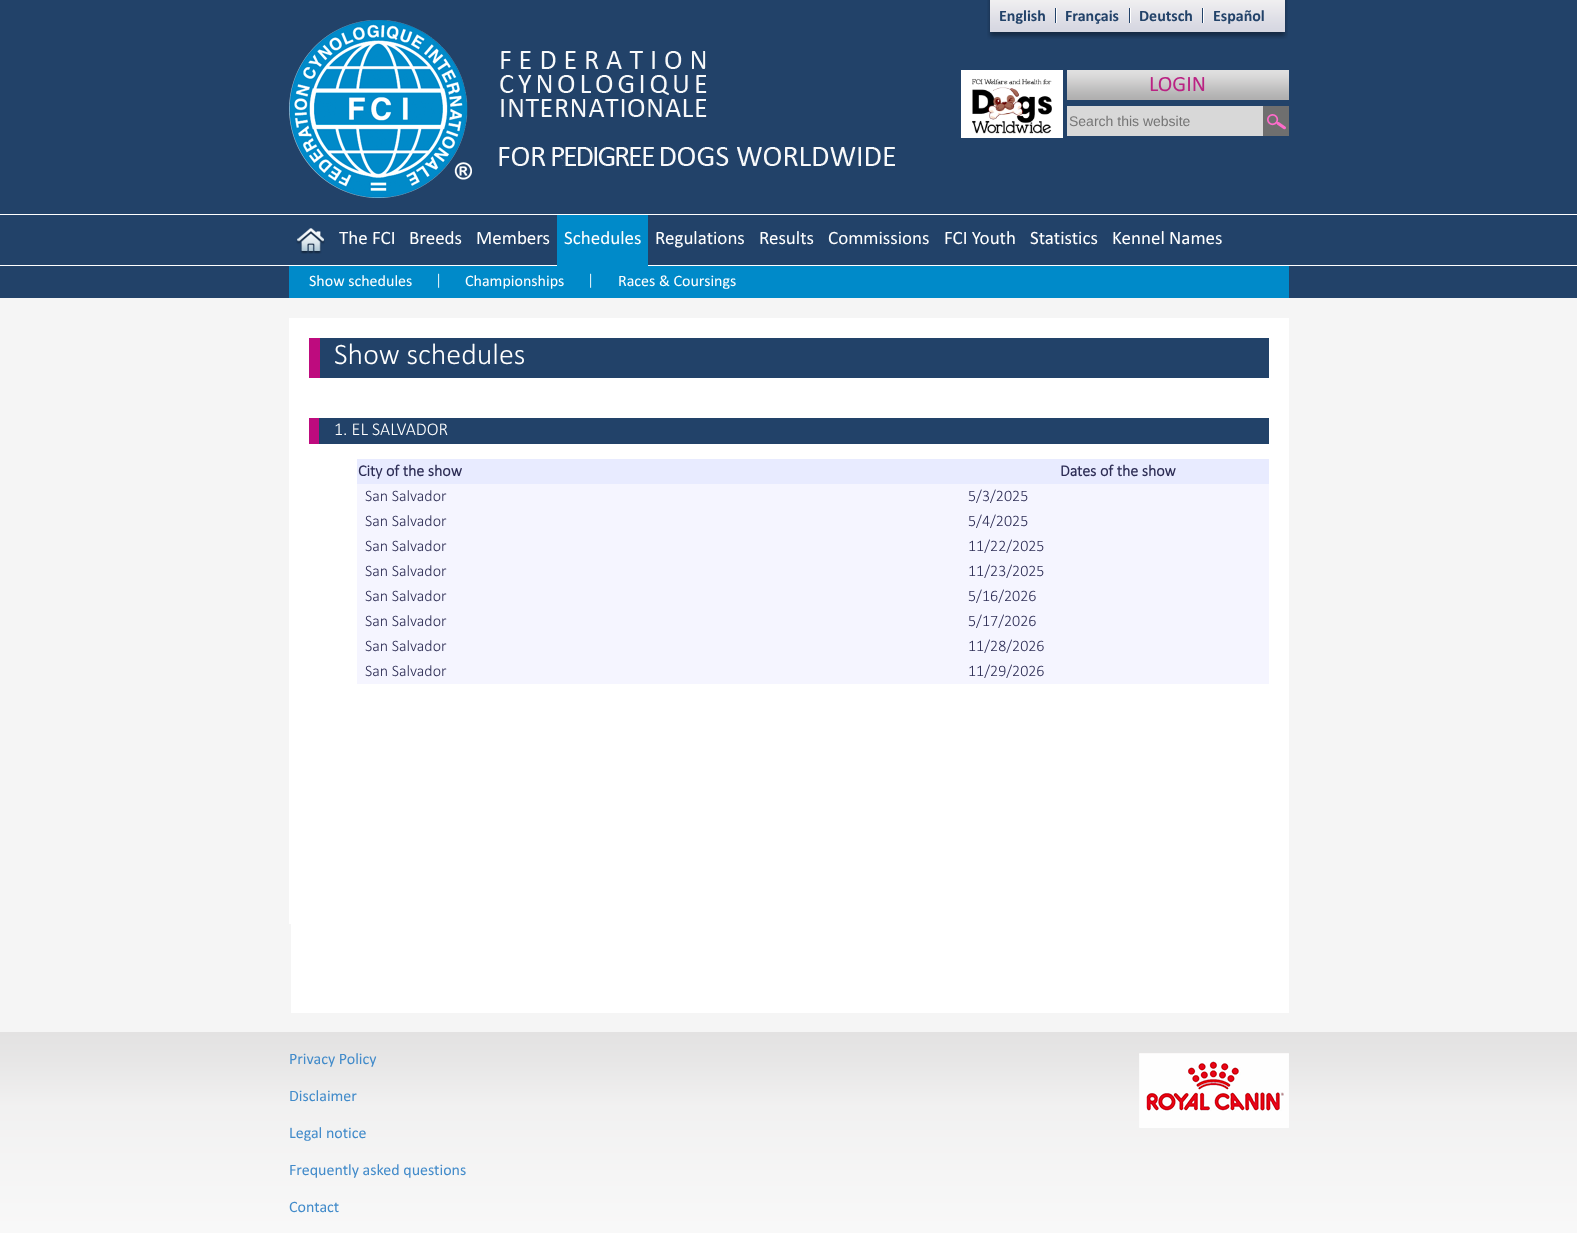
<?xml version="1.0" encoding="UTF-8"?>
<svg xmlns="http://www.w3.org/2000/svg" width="1577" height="1233">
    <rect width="100%" height="100%" fill="#F5F5F5"/>
    <rect x="291" y="924" width="998" height="89" fill="#FFFFFF"/>
    <image x="0" y="0" width="1577" height="318" href="img_01.png"/>
    <image x="987" y="0" width="301" height="39" href="img_02.png"/>
    <text x="999" y="21" font-family="Calibri" font-size="16" font-weight="700" fill="#224269">English</text>
    <text x="1065" y="21" font-family="Calibri" font-size="16" font-weight="700" fill="#224269">Français</text>
    <text x="1139" y="21" font-family="Calibri" font-size="16" font-weight="700" fill="#224269">Deutsch</text>
    <text x="1213" y="21" font-family="Calibri" font-size="16" font-weight="700" fill="#224269">Español</text>
    <image x="289" y="20" width="606" height="178" href="img_03.png"/>
    <image x="961" y="70" width="102" height="68" href="img_04.png"/>
    <image x="1067" y="70" width="222" height="30" href="img_05.png"/>
    <text x="1149" y="91" font-family="Calibri" font-size="22" fill="#BA2283">LOGIN</text>
    <rect x="1067" y="106" width="196" height="30" fill="#D8D8D8"/>
    <text x="1069" y="126" font-family="Liberation Sans" font-size="14" fill="#757575">Search this website</text>
    <image x="1263" y="106" width="26" height="30" href="img_06.png"/>
    <image x="296" y="228" width="29" height="26" href="img_07.png"/>
    <text x="339" y="244" font-family="Calibri" font-size="19" fill="#FFFFFF">The FCI</text>
    <text x="409" y="244" font-family="Calibri" font-size="19" fill="#FFFFFF">Breeds</text>
    <text x="476" y="244" font-family="Calibri" font-size="19" fill="#FFFFFF">Members</text>
    <rect x="557" y="215" width="91" height="51" fill="#008AC9"/>
    <text x="564" y="244" font-family="Calibri" font-size="19" fill="#FFFFFF">Schedules</text>
    <text x="655" y="244" font-family="Calibri" font-size="19" fill="#FFFFFF">Regulations</text>
    <text x="759" y="244" font-family="Calibri" font-size="19" fill="#FFFFFF">Results</text>
    <text x="828" y="244" font-family="Calibri" font-size="19" fill="#FFFFFF">Commissions</text>
    <text x="944" y="244" font-family="Calibri" font-size="19" fill="#FFFFFF">FCI Youth</text>
    <text x="1030" y="244" font-family="Calibri" font-size="19" fill="#FFFFFF">Statistics</text>
    <text x="1112" y="244" font-family="Calibri" font-size="19" fill="#FFFFFF">Kennel Names</text>
    <rect x="289" y="266" width="1000" height="32" fill="#008AC9"/>
    <text x="309" y="286" font-family="Calibri" font-size="16" fill="#FFFFFF">Show schedules</text>
    <text x="435" y="285" font-family="Calibri" font-size="16" font-weight="300" fill="#FFFFFF">|</text>
    <text x="465" y="286" font-family="Calibri" font-size="16" fill="#FFFFFF">Championships</text>
    <text x="587" y="285" font-family="Calibri" font-size="16" font-weight="300" fill="#FFFFFF">|</text>
    <text x="618" y="286" font-family="Calibri" font-size="16" fill="#FFFFFF">Races &amp; Coursings</text>
    <rect x="289" y="318" width="1000" height="606" fill="#FFFFFF"/>
    <rect x="320" y="338" width="949" height="40" fill="#224269"/>
    <rect x="309" y="338" width="11" height="40" fill="#BE0B7E"/>
    <text x="334" y="364" font-family="Calibri" font-size="30" font-weight="300" fill="#FFFFFF">Show schedules</text>
    <rect x="319" y="418" width="950" height="26" fill="#224269"/>
    <rect x="309" y="418" width="10" height="26" fill="#BE0B7E"/>
    <text x="334" y="435" font-family="Calibri" font-size="18" font-weight="300" fill="#FFFFFF">1. EL SALVADOR</text>
    <rect x="357" y="459" width="912" height="25" fill="#E8EBFF"/>
    <text x="358" y="476" font-family="'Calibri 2'" font-size="16" font-weight="700" fill="#2D2D55">City of the show</text>
    <text x="1060" y="476" font-family="'Calibri 2'" font-size="16" font-weight="700" fill="#2D2D55">Dates of the show</text>
    <rect x="357" y="484" width="912" height="25" fill="#F5F5FF"/>
    <text x="365" y="501" font-family="Calibri" font-size="16" font-weight="300" fill="#2D2D55">San Salvador</text>
    <text x="968" y="501" font-family="Calibri" font-size="16" font-weight="300" fill="#2D2D55">5/3/2025</text>
    <rect x="357" y="509" width="912" height="25" fill="#F5F5FF"/>
    <text x="365" y="526" font-family="Calibri" font-size="16" font-weight="300" fill="#2D2D55">San Salvador</text>
    <text x="968" y="526" font-family="Calibri" font-size="16" font-weight="300" fill="#2D2D55">5/4/2025</text>
    <rect x="357" y="534" width="912" height="25" fill="#F5F5FF"/>
    <text x="365" y="551" font-family="Calibri" font-size="16" font-weight="300" fill="#2D2D55">San Salvador</text>
    <text x="968" y="551" font-family="Calibri" font-size="16" font-weight="300" fill="#2D2D55">11/22/2025</text>
    <rect x="357" y="559" width="912" height="25" fill="#F5F5FF"/>
    <text x="365" y="576" font-family="Calibri" font-size="16" font-weight="300" fill="#2D2D55">San Salvador</text>
    <text x="968" y="576" font-family="Calibri" font-size="16" font-weight="300" fill="#2D2D55">11/23/2025</text>
    <rect x="357" y="584" width="912" height="25" fill="#F5F5FF"/>
    <text x="365" y="601" font-family="Calibri" font-size="16" font-weight="300" fill="#2D2D55">San Salvador</text>
    <text x="968" y="601" font-family="Calibri" font-size="16" font-weight="300" fill="#2D2D55">5/16/2026</text>
    <rect x="357" y="609" width="912" height="25" fill="#F5F5FF"/>
    <text x="365" y="626" font-family="Calibri" font-size="16" font-weight="300" fill="#2D2D55">San Salvador</text>
    <text x="968" y="626" font-family="Calibri" font-size="16" font-weight="300" fill="#2D2D55">5/17/2026</text>
    <rect x="357" y="634" width="912" height="25" fill="#F5F5FF"/>
    <text x="365" y="651" font-family="Calibri" font-size="16" font-weight="300" fill="#2D2D55">San Salvador</text>
    <text x="968" y="651" font-family="Calibri" font-size="16" font-weight="300" fill="#2D2D55">11/28/2026</text>
    <rect x="357" y="659" width="912" height="25" fill="#F5F5FF"/>
    <text x="365" y="676" font-family="Calibri" font-size="16" font-weight="300" fill="#2D2D55">San Salvador</text>
    <text x="968" y="676" font-family="Calibri" font-size="16" font-weight="300" fill="#2D2D55">11/29/2026</text>
    <image x="0" y="1013" width="1577" height="220" href="img_08.png"/>
    <text x="289" y="1064" font-family="Calibri" font-size="16" fill="#428BCA">Privacy Policy</text>
    <text x="289" y="1101" font-family="Calibri" font-size="16" fill="#428BCA">Disclaimer</text>
    <text x="289" y="1138" font-family="Calibri" font-size="16" fill="#428BCA">Legal notice</text>
    <text x="289" y="1175" font-family="Calibri" font-size="16" fill="#428BCA">Frequently asked questions</text>
    <text x="289" y="1212" font-family="Calibri" font-size="16" fill="#428BCA">Contact</text>
    <image x="1139" y="1053" width="150" height="75" href="img_09.png"/>
</svg>
